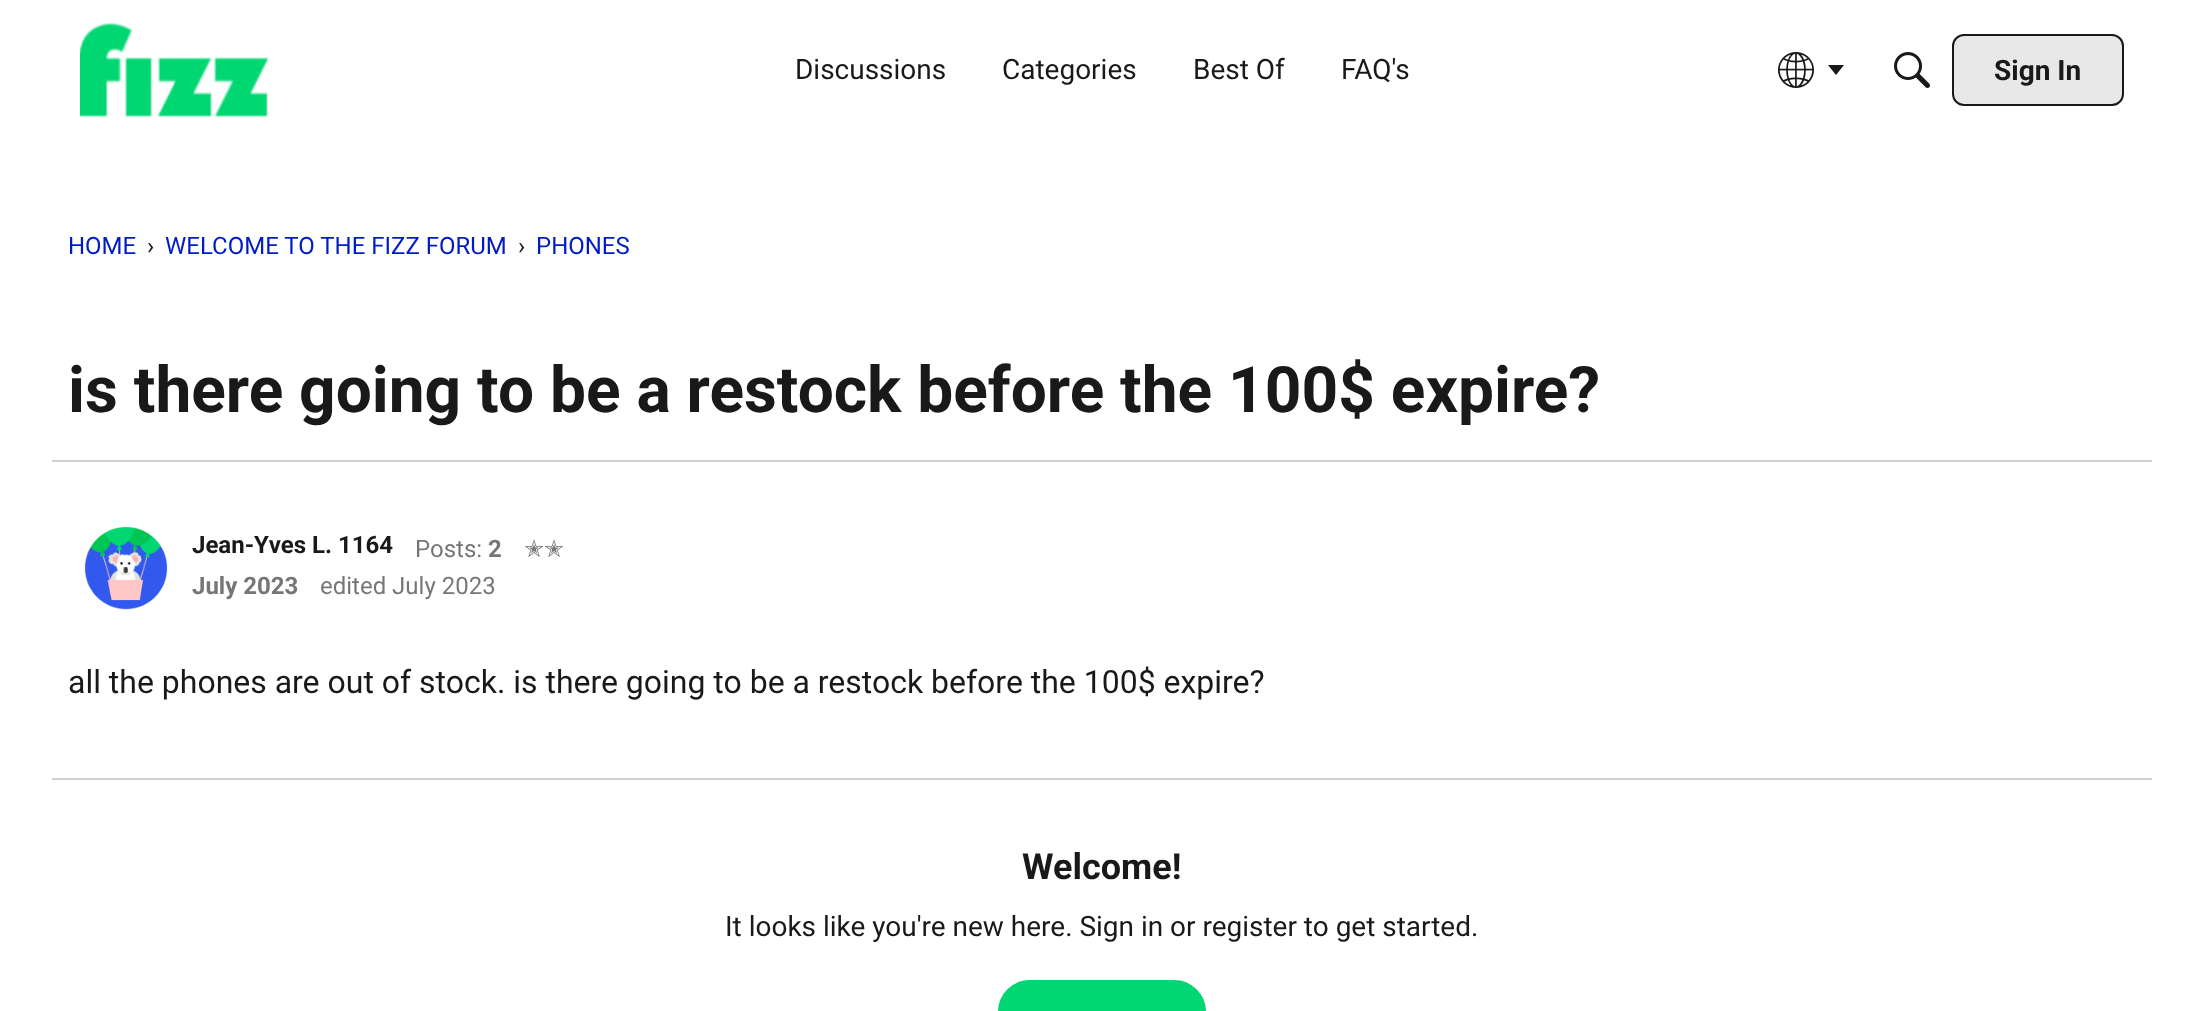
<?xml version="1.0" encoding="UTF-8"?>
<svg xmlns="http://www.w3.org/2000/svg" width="2203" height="1011">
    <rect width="100%" height="100%" fill="#FFFFFF"/>
    <image x="80" y="23" width="188" height="94" href="img_01.png"/>
    <text x="795" y="79" font-family="Roboto" font-size="28" fill="#191919">Discussions</text>
    <text x="1002" y="79" font-family="Roboto" font-size="28" fill="#191919">Categories</text>
    <text x="1193" y="79" font-family="Roboto" font-size="28" fill="#191919">Best Of</text>
    <text x="1341" y="79" font-family="Roboto" font-size="28" fill="#191919">FAQ's</text>
    <image x="1778" y="52" width="36" height="36" href="img_02.png"/>
    <path d="M 1828 65 H 1844 L 1836 75 Z" fill="#191919"/>
    <image x="1894" y="52" width="36" height="36" href="img_03.png"/>
    <rect x="1953" y="35" width="170" height="70" rx="11" fill="#E8E8E8" stroke="#191919" stroke-width="2"/>
    <text x="1994" y="80" font-family="Roboto" font-size="28" font-weight="700" fill="#191919">Sign In</text>
    <text x="68" y="254" font-family="Roboto" font-size="24" fill="#001CC3">HOME</text>
    <text x="147" y="254" font-family="Roboto" font-size="24" fill="#191919">›</text>
    <text x="165" y="254" font-family="Roboto" font-size="24" fill="#001CC3">WELCOME TO THE FIZZ FORUM</text>
    <text x="518" y="254" font-family="Roboto" font-size="24" fill="#191919">›</text>
    <text x="536" y="254" font-family="Roboto" font-size="24" fill="#001CC3">PHONES</text>
    <text x="68" y="412" font-family="Roboto" font-size="64" font-weight="700" fill="#191919">is there going to be a restock before the 100$ expire?</text>
    <rect x="52" y="460" width="2100" height="2" fill="#D1D1D1"/>
    <image x="84" y="526" width="84" height="84" href="img_04.png"/>
    <text x="192" y="553" font-family="Roboto" font-size="24" font-weight="700" fill="#191919">Jean-Yves L. 1164</text>
    <text x="415" y="557" font-family="Roboto" font-size="24" fill="#767676">Posts:</text>
    <text x="488" y="557" font-family="Roboto" font-size="24" font-weight="700" fill="#767676">2</text>
    <text x="524" y="557" font-family="DejaVu Sans" font-size="24" fill="#767676">✭✭</text>
    <text x="192" y="594" font-family="Roboto" font-size="24" font-weight="700" fill="#767676">July 2023</text>
    <text x="320" y="594" font-family="Roboto" font-size="24" fill="#767676">edited July 2023</text>
    <text x="68" y="693" font-family="Roboto" font-size="32" fill="#191919">all the phones are out of stock. is there going to be a restock before the 100$ expire?</text>
    <rect x="52" y="778" width="2100" height="2" fill="#D1D1D1"/>
    <text x="1022" y="879" font-family="Roboto" font-size="36" font-weight="700" fill="#191919">Welcome!</text>
    <text x="725" y="936" font-family="Roboto" font-size="28" fill="#191919">It looks like you're new here. Sign in or register to get started.</text>
    <rect x="999" y="981" width="206" height="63" rx="31" fill="#00D672" stroke="#00D672" stroke-width="2"/>
</svg>
